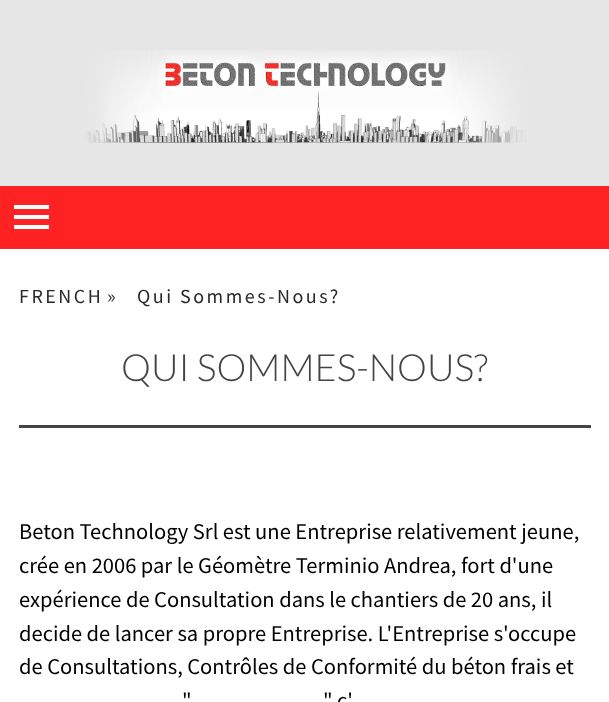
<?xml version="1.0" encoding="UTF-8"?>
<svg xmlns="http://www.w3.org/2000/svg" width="609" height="702">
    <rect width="100%" height="100%" fill="#FFFFFF"/>
    <rect x="0" y="0" width="609" height="186" fill="#E6E6E6"/>
    <image x="85" y="50" width="441" height="93" href="img_01.png"/>
    <rect x="0" y="186" width="609" height="63" fill="#FF2222"/>
    <rect x="14" y="215" width="35" height="4" fill="#FFFFFF"/>
    <rect x="14" y="205" width="35" height="4" fill="#FFFFFF"/>
    <rect x="14" y="225" width="35" height="4" fill="#FFFFFF"/>
    <text x="19" y="303" font-family="Source Sans Pro" font-size="20" letter-spacing="2.5" fill="#282828">FRENCH</text>
    <text x="107" y="303" font-family="Source Sans Pro" font-size="20" letter-spacing="2.5" fill="#282828">»</text>
    <text x="137" y="303" font-family="Source Sans Pro" font-size="20" letter-spacing="2.5" fill="#282828">Qui Sommes-Nous?</text>
    <text x="121" y="381" font-family="Lato" font-size="37.5" font-weight="300" fill="#444444">QUI SOMMES-NOUS?</text>
    <rect x="19" y="425" width="572" height="3" fill="#444444"/>
    <text font-family="Source Sans Pro" font-size="22.5" fill="#000000">
        <tspan x="19" y="539">Beton Technology Srl est une Entreprise relativement jeune,</tspan>
        <tspan x="19" y="573">crée en 2006 par le Géomètre Terminio Andrea, fort d'une</tspan>
        <tspan x="19" y="607">expérience de Consultation dans le chantiers de 20 ans, il</tspan>
        <tspan x="19" y="641">decide de lancer sa propre Entreprise. L'Entreprise s'occupe</tspan>
        <tspan x="19" y="674">de Consultations, Contrôles de Conformité du béton frais et</tspan>
    </text>
    <text x="182" y="708" font-family="Source Sans Pro" font-size="22.5" fill="#000000">"</text>
    <text x="323" y="708" font-family="Source Sans Pro" font-size="22.5" fill="#000000">" c'</text>
</svg>
